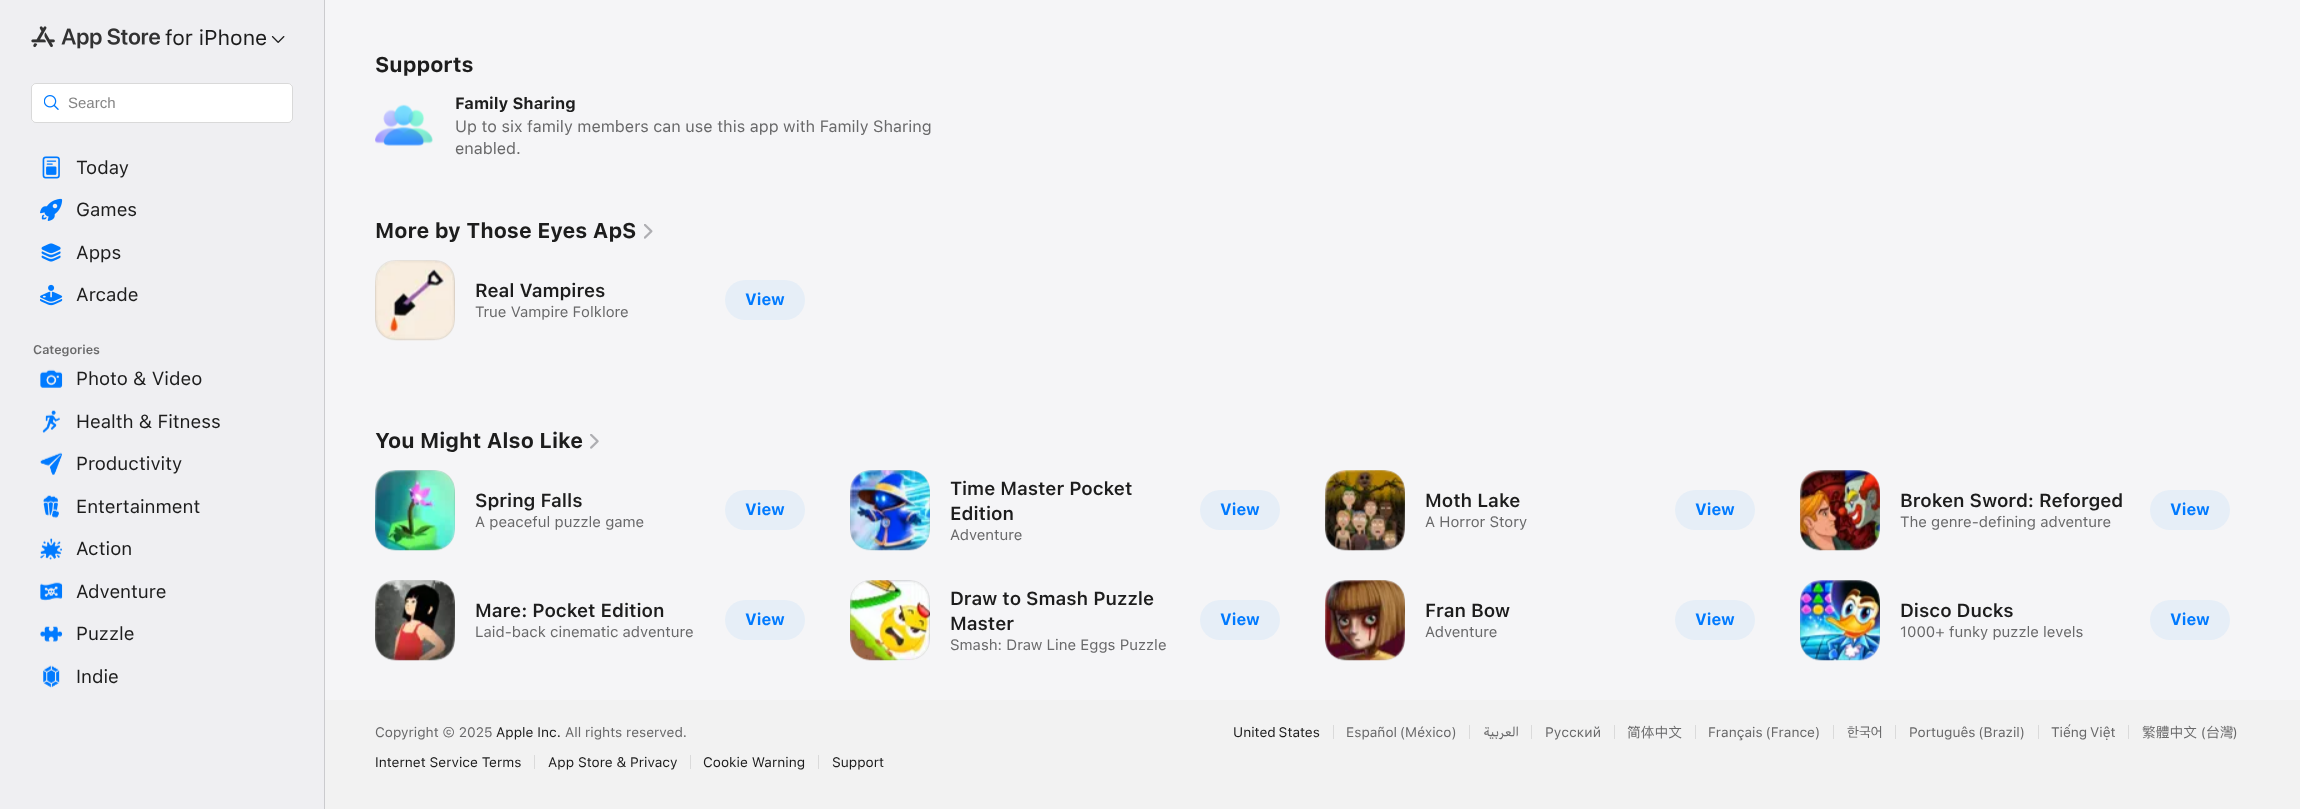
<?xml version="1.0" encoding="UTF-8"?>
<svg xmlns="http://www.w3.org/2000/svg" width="2300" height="809">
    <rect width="100%" height="100%" fill="#F5F5F7"/>
    <rect x="0" y="0" width="324" height="809" fill="#EFEFF2"/>
    <rect x="324" y="0" width="1" height="809" fill="#CBCBCE"/>
    <image x="31" y="26" width="129" height="23" href="img_01.png"/>
    <text x="165" y="45" font-family="SF" font-size="21.25" fill="#1D1D1D">for iPhone</text>
    <image x="271" y="36" width="14" height="7" href="img_02.png"/>
    <rect x="31" y="83" width="262" height="40" rx="5" fill="#FFFFFF"/>
    <rect x="31.5" y="83.5" width="261" height="39" rx="4.5" fill="none" stroke="#000000" stroke-opacity="0.15"/>
    <image x="44" y="95" width="15" height="15" href="img_03.png"/>
    <text x="68" y="108" font-family="Liberation Sans" font-size="15" fill="#858585">Search</text>
    <image x="42" y="156" width="18" height="23" href="img_04.png"/>
    <text x="76" y="174" font-family="SF" font-size="18.75" fill="#1D1D1D">Today</text>
    <image x="40" y="198" width="23" height="23" href="img_05.png"/>
    <text x="76" y="216" font-family="SF" font-size="18.75" fill="#1D1D1D">Games</text>
    <image x="41" y="243" width="20" height="19" href="img_06.png"/>
    <text x="76" y="259" font-family="SF" font-size="18.75" fill="#1D1D1D">Apps</text>
    <image x="40" y="284" width="23" height="22" href="img_07.png"/>
    <text x="76" y="301" font-family="SF" font-size="18.75" fill="#1D1D1D">Arcade</text>
    <text x="33" y="354" font-family="SF" font-size="12.5" font-weight="600" fill="#69696A">Categories</text>
    <image x="40" y="369" width="23" height="19" href="img_08.png"/>
    <text x="76" y="385" font-family="SF" font-size="18.75" fill="#1D1D1D">Photo &amp; Video</text>
    <image x="42" y="410" width="18" height="23" href="img_09.png"/>
    <text x="76" y="428" font-family="SF" font-size="18.75" fill="#1D1D1D">Health &amp; Fitness</text>
    <image x="40" y="452" width="22" height="23" href="img_10.png"/>
    <text x="76" y="470" font-family="SF" font-size="18.75" fill="#1D1D1D">Productivity</text>
    <image x="43" y="495" width="16" height="23" href="img_11.png"/>
    <text x="76" y="513" font-family="SF" font-size="18.75" fill="#1D1D1D">Entertainment</text>
    <image x="40" y="538" width="22" height="22" href="img_12.png"/>
    <text x="76" y="555" font-family="SF" font-size="18.75" fill="#1D1D1D">Action</text>
    <image x="40" y="582" width="23" height="19" href="img_13.png"/>
    <text x="76" y="598" font-family="SF" font-size="18.75" fill="#1D1D1D">Adventure</text>
    <image x="40" y="626" width="23" height="16" href="img_14.png"/>
    <text x="76" y="640" font-family="SF" font-size="18.75" fill="#1D1D1D">Puzzle</text>
    <image x="43" y="665" width="17" height="23" href="img_15.png"/>
    <text x="76" y="683" font-family="SF" font-size="18.75" fill="#1D1D1D">Indie</text>
    <text x="375" y="72" font-family="SF" font-size="21.25" font-weight="700" fill="#1D1D1D">Supports</text>
    <image x="375" y="104" width="58" height="42" href="img_16.png"/>
    <text x="455" y="109" font-family="SF" font-size="16.25" font-weight="700" fill="#1D1D1D">Family Sharing</text>
    <text font-family="SF" font-size="16.25" fill="#69696A">
        <tspan x="455" y="132">Up to six family members can use this app with Family Sharing</tspan>
        <tspan x="455" y="154">enabled.</tspan>
    </text>
    <text x="375" y="238" font-family="SF" font-size="21.25" font-weight="700" fill="#1D1D1D">More by Those Eyes ApS</text>
    <image x="644" y="224" width="9" height="15" href="img_17.png"/>
    <image x="375" y="260" width="80" height="81" href="img_18.png"/>
    <rect x="375.5" y="260.5" width="79" height="79" rx="19.5" fill="none" stroke="#808080" stroke-opacity="0.1"/>
    <text x="475" y="297" font-family="SF" font-size="18.75" font-weight="600" fill="#1D1D1D">Real Vampires</text>
    <text x="475" y="317" font-family="SF" font-size="15" fill="#69696A">True Vampire Folklore</text>
    <rect x="725" y="280" width="80" height="40" rx="20" fill="#E6EEF7"/>
    <text x="745" y="305" font-family="SF" font-size="16.25" font-weight="700" fill="#007AFF">View</text>
    <text x="375" y="448" font-family="SF" font-size="21.25" font-weight="700" fill="#1D1D1D">You Might Also Like</text>
    <image x="590" y="434" width="9" height="15" href="img_19.png"/>
    <image x="375" y="470" width="80" height="81" href="img_20.png"/>
    <rect x="375.5" y="470.5" width="79" height="79" rx="19.5" fill="none" stroke="#808080" stroke-opacity="0.1"/>
    <text x="475" y="507" font-family="SF" font-size="18.75" font-weight="600" fill="#1D1D1D">Spring Falls</text>
    <text x="475" y="527" font-family="SF" font-size="15" fill="#69696A">A peaceful puzzle game</text>
    <rect x="725" y="490" width="80" height="40" rx="20" fill="#E6EEF7"/>
    <text x="745" y="515" font-family="SF" font-size="16.25" font-weight="700" fill="#007AFF">View</text>
    <image x="850" y="470" width="80" height="81" href="img_21.png"/>
    <rect x="850.5" y="470.5" width="79" height="79" rx="19.5" fill="none" stroke="#808080" stroke-opacity="0.1"/>
    <text font-family="SF" font-size="18.75" font-weight="600" fill="#1D1D1D">
        <tspan x="950" y="495">Time Master Pocket</tspan>
        <tspan x="950" y="520">Edition</tspan>
    </text>
    <text x="950" y="540" font-family="SF" font-size="15" fill="#69696A">Adventure</text>
    <rect x="1200" y="490" width="80" height="40" rx="20" fill="#E6EEF7"/>
    <text x="1220" y="515" font-family="SF" font-size="16.25" font-weight="700" fill="#007AFF">View</text>
    <image x="1325" y="470" width="80" height="81" href="img_22.png"/>
    <rect x="1325.5" y="470.5" width="79" height="79" rx="19.5" fill="none" stroke="#808080" stroke-opacity="0.1"/>
    <text x="1425" y="507" font-family="SF" font-size="18.75" font-weight="600" fill="#1D1D1D">Moth Lake</text>
    <text x="1425" y="527" font-family="SF" font-size="15" fill="#69696A">A Horror Story</text>
    <rect x="1675" y="490" width="80" height="40" rx="20" fill="#E6EEF7"/>
    <text x="1695" y="515" font-family="SF" font-size="16.25" font-weight="700" fill="#007AFF">View</text>
    <image x="1800" y="470" width="80" height="81" href="img_23.png"/>
    <rect x="1800.5" y="470.5" width="79" height="79" rx="19.5" fill="none" stroke="#808080" stroke-opacity="0.1"/>
    <text x="1900" y="507" font-family="SF" font-size="18.75" font-weight="600" fill="#1D1D1D">Broken Sword: Reforged</text>
    <text x="1900" y="527" font-family="SF" font-size="15" fill="#69696A">The genre-defining adventure</text>
    <rect x="2150" y="490" width="80" height="40" rx="20" fill="#E6EEF7"/>
    <text x="2170" y="515" font-family="SF" font-size="16.25" font-weight="700" fill="#007AFF">View</text>
    <image x="375" y="580" width="80" height="81" href="img_24.png"/>
    <rect x="375.5" y="580.5" width="79" height="79" rx="19.5" fill="none" stroke="#808080" stroke-opacity="0.1"/>
    <text x="475" y="617" font-family="SF" font-size="18.75" font-weight="600" fill="#1D1D1D">Mare: Pocket Edition</text>
    <text x="475" y="637" font-family="SF" font-size="15" fill="#69696A">Laid-back cinematic adventure</text>
    <rect x="725" y="600" width="80" height="40" rx="20" fill="#E6EEF7"/>
    <text x="745" y="625" font-family="SF" font-size="16.25" font-weight="700" fill="#007AFF">View</text>
    <image x="850" y="580" width="80" height="81" href="img_25.png"/>
    <rect x="850.5" y="580.5" width="79" height="79" rx="19.5" fill="none" stroke="#808080" stroke-opacity="0.1"/>
    <text font-family="SF" font-size="18.75" font-weight="600" fill="#1D1D1D">
        <tspan x="950" y="605">Draw to Smash Puzzle</tspan>
        <tspan x="950" y="630">Master</tspan>
    </text>
    <text x="950" y="650" font-family="SF" font-size="15" fill="#69696A">Smash: Draw Line Eggs Puzzle</text>
    <rect x="1200" y="600" width="80" height="40" rx="20" fill="#E6EEF7"/>
    <text x="1220" y="625" font-family="SF" font-size="16.25" font-weight="700" fill="#007AFF">View</text>
    <image x="1325" y="580" width="80" height="81" href="img_26.png"/>
    <rect x="1325.5" y="580.5" width="79" height="79" rx="19.5" fill="none" stroke="#808080" stroke-opacity="0.1"/>
    <text x="1425" y="617" font-family="SF" font-size="18.75" font-weight="600" fill="#1D1D1D">Fran Bow</text>
    <text x="1425" y="637" font-family="SF" font-size="15" fill="#69696A">Adventure</text>
    <rect x="1675" y="600" width="80" height="40" rx="20" fill="#E6EEF7"/>
    <text x="1695" y="625" font-family="SF" font-size="16.25" font-weight="700" fill="#007AFF">View</text>
    <image x="1800" y="580" width="80" height="81" href="img_27.png"/>
    <rect x="1800.5" y="580.5" width="79" height="79" rx="19.5" fill="none" stroke="#808080" stroke-opacity="0.1"/>
    <text x="1900" y="617" font-family="SF" font-size="18.75" font-weight="600" fill="#1D1D1D">Disco Ducks</text>
    <text x="1900" y="637" font-family="SF" font-size="15" fill="#69696A">1000+ funky puzzle levels</text>
    <rect x="2150" y="600" width="80" height="40" rx="20" fill="#E6EEF7"/>
    <text x="2170" y="625" font-family="SF" font-size="16.25" font-weight="700" fill="#007AFF">View</text>
    <rect x="325" y="700" width="1975" height="109" fill="#F2F2F2"/>
    <text x="375" y="737" font-family="SF" font-size="13.75" fill="#69696A">Copyright © 2025</text>
    <text x="496" y="737" font-family="SF" font-size="13.75" fill="#1D1D1D">Apple Inc.</text>
    <text x="565" y="737" font-family="SF" font-size="13.75" fill="#69696A">All rights reserved.</text>
    <text x="375" y="767" font-family="SF" font-size="13.75" fill="#1D1D1D">Internet Service Terms</text>
    <rect x="534" y="755" width="1" height="14" fill="#DADADA"/>
    <text x="548" y="767" font-family="SF" font-size="13.75" fill="#1D1D1D">App Store &amp; Privacy</text>
    <rect x="690" y="755" width="1" height="14" fill="#DADADA"/>
    <text x="703" y="767" font-family="SF" font-size="13.75" fill="#1D1D1D">Cookie Warning</text>
    <rect x="818" y="755" width="1" height="14" fill="#DADADA"/>
    <text x="832" y="767" font-family="SF" font-size="13.75" fill="#1D1D1D">Support</text>
    <text x="1233" y="737" word-spacing="-1" font-family="SF" font-size="13.75" fill="#1D1D1D">United States</text>
    <rect x="1333" y="725" width="1" height="14" fill="#DADADA"/>
    <text x="1346" y="737" word-spacing="-1" font-family="SF" font-size="13.75" fill="#69696A">Español (México)</text>
    <rect x="1469" y="725" width="1" height="14" fill="#DADADA"/>
    <text x="1519" y="737" font-family="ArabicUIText" font-size="13.75" direction="rtl" fill="#69696A">العربية</text>
    <rect x="1531" y="725" width="1" height="14" fill="#DADADA"/>
    <text x="1545" y="737" font-family="SF" font-size="13.75" fill="#69696A">Русский</text>
    <rect x="1614" y="725" width="1" height="14" fill="#DADADA"/>
    <text x="1627" y="737" font-family="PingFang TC" font-size="13.75" fill="#69696A">简体中文</text>
    <rect x="1695" y="725" width="1" height="14" fill="#DADADA"/>
    <text x="1708" y="737" word-spacing="-1" font-family="SF" font-size="13.75" fill="#69696A">Français (France)</text>
    <rect x="1833" y="725" width="1" height="14" fill="#DADADA"/>
    <text x="1847" y="737" font-family="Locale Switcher" font-size="13.75" fill="#69696A">한국어</text>
    <rect x="1895" y="725" width="1" height="14" fill="#DADADA"/>
    <text x="1909" y="737" word-spacing="-1" font-family="SF" font-size="13.75" fill="#69696A">Português (Brazil)</text>
    <rect x="2038" y="725" width="1" height="14" fill="#DADADA"/>
    <text x="2051" y="737" word-spacing="-1" font-family="SF" font-size="13.75" fill="#69696A">Tiếng Việt</text>
    <rect x="2128" y="725" width="1" height="14" fill="#DADADA"/>
    <text x="2142" y="737" font-family="PingFang TC" font-size="13.75" fill="#69696A">繁體中文</text>
    <text x="2201" y="737" font-family="'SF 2'" font-size="13.75" fill="#69696A">(</text>
    <text x="2206" y="737" font-family="PingFang TC" font-size="13.75" fill="#69696A">台灣</text>
    <text x="2233" y="737" font-family="'SF 2'" font-size="13.75" fill="#69696A">)</text>
</svg>
